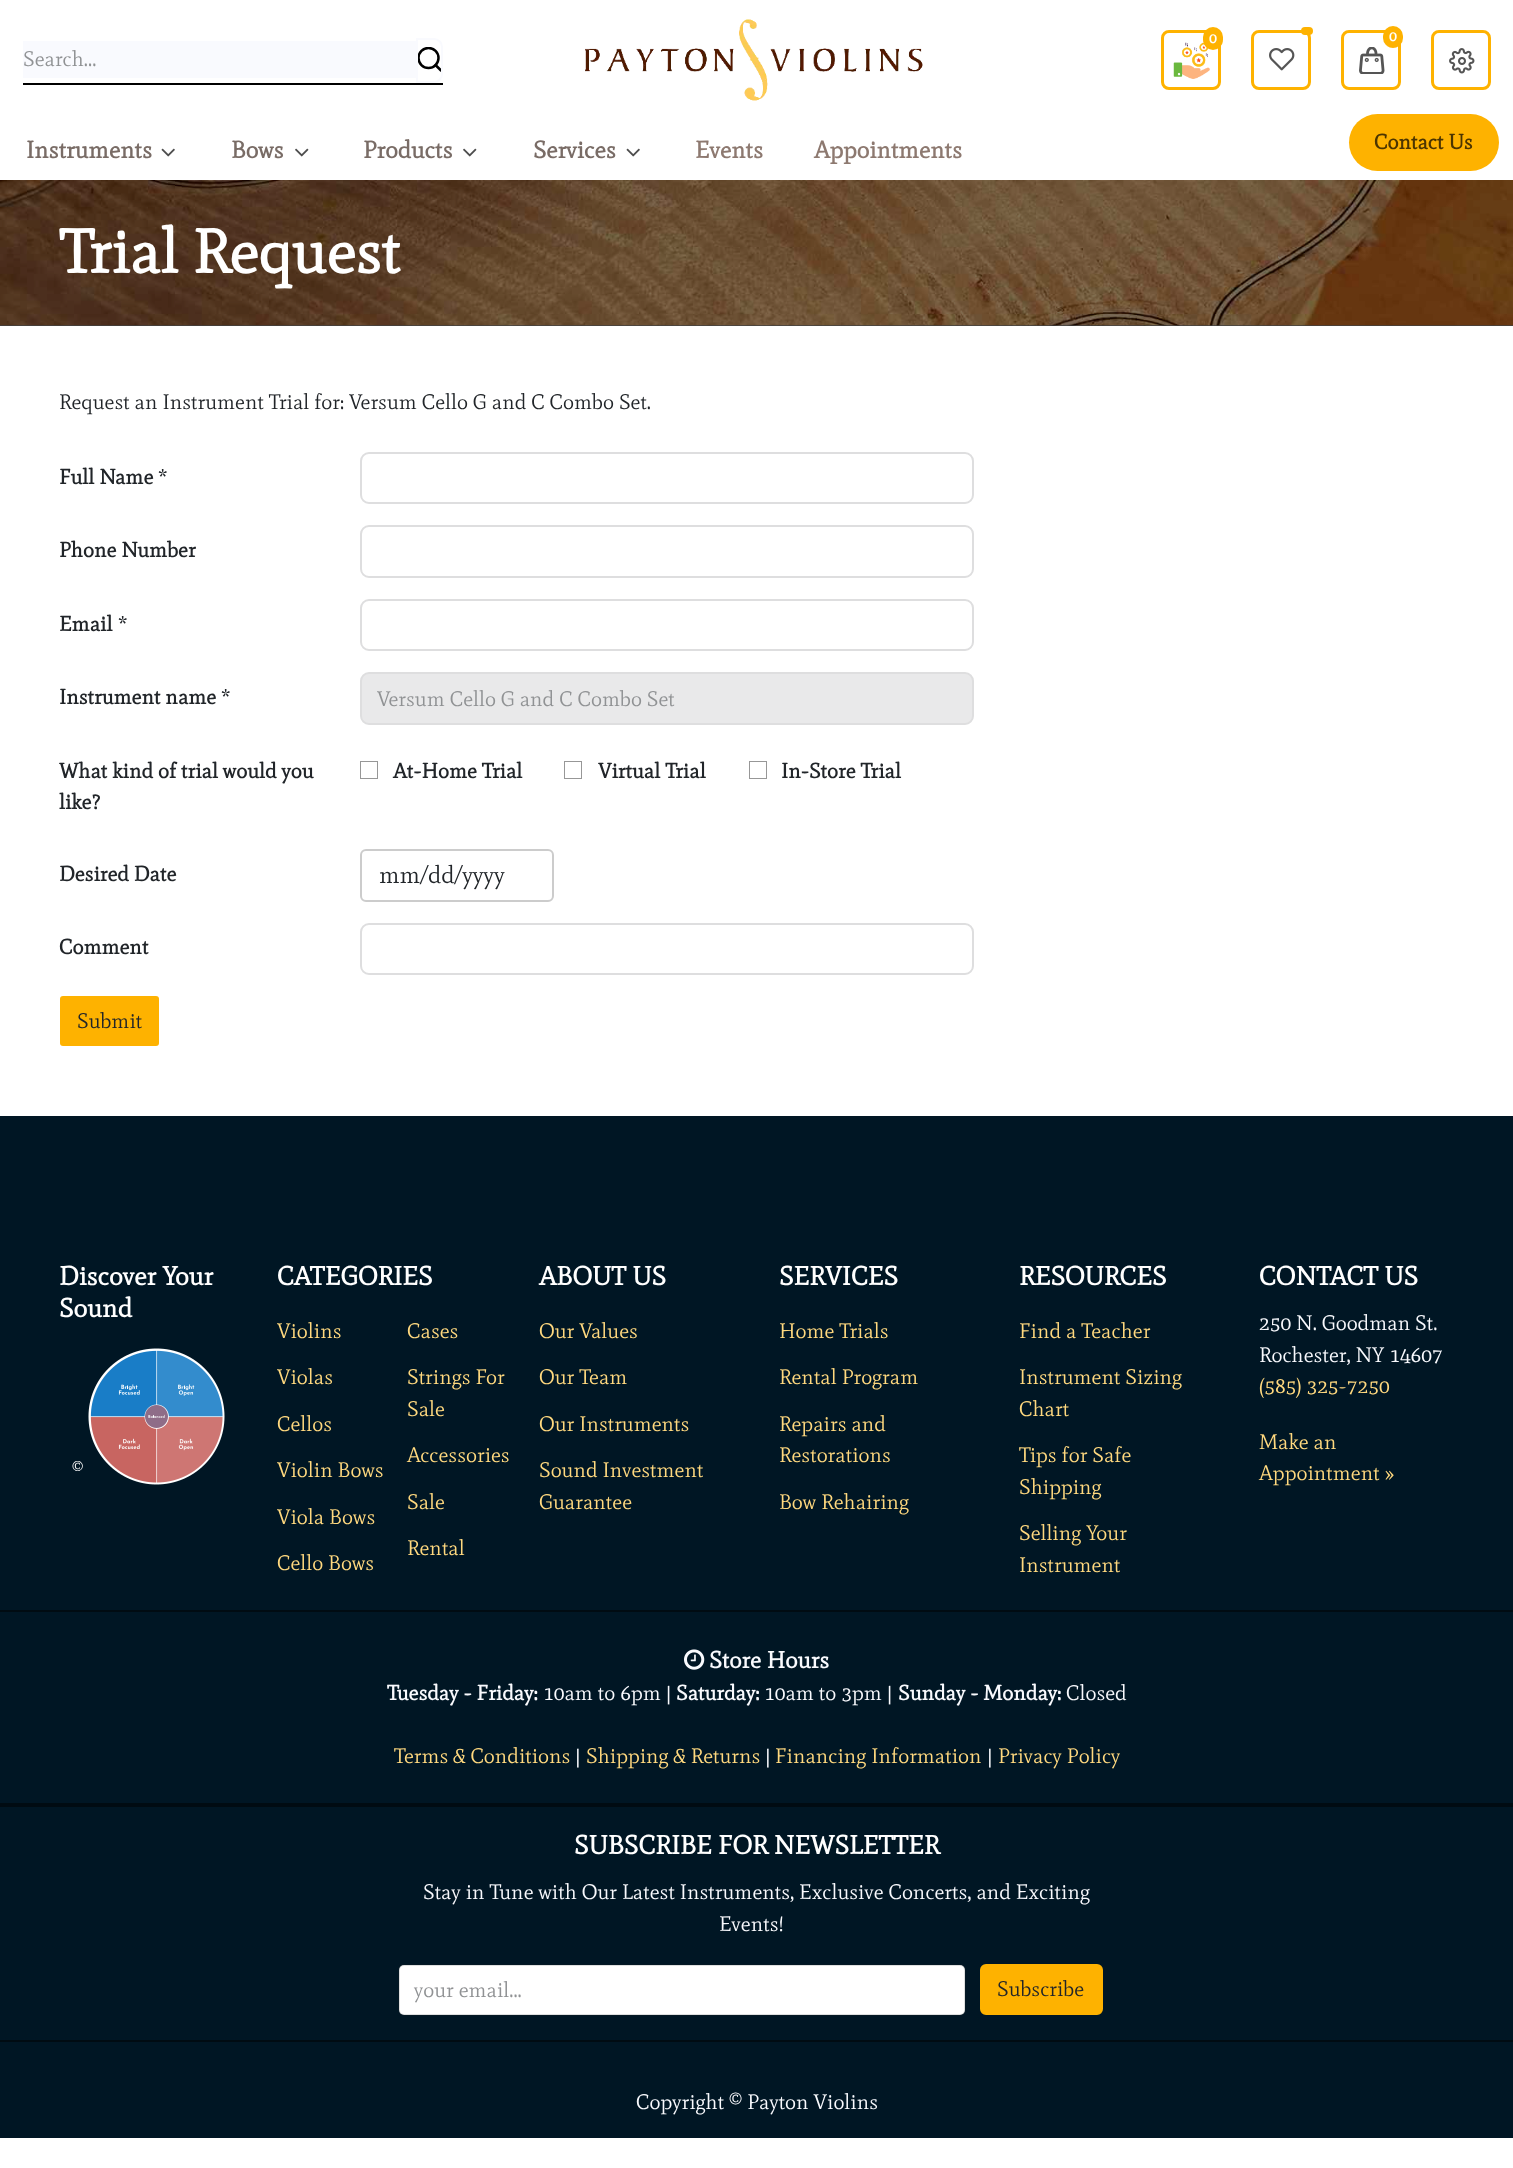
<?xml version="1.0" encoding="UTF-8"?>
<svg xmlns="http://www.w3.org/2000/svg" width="1513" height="2168">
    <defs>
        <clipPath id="clip1"><rect x="417" y="47" width="26" height="25"/></clipPath>
    </defs>
    <rect width="100%" height="100%" fill="#FFFFFF"/>
    <image x="585" y="19" width="338" height="82" href="img_01.png"/>
    <image x="1173" y="42" width="37" height="37" href="img_02.png"/>
    <rect x="1162.5" y="31.5" width="57" height="57" rx="6.5" fill="none" stroke="#FEB200" stroke-width="3"/>
    <rect x="1203" y="27" width="20" height="23" rx="10" fill="#FEB200"/>
    <text x="1209" y="43" font-family="Mate" font-size="15" font-weight="700" fill="#FFFFFF">0</text>
    <image x="1269" y="48" width="26" height="23" href="img_03.png"/>
    <rect x="1252.5" y="31.5" width="57" height="57" rx="6.5" fill="none" stroke="#FEB200" stroke-width="3"/>
    <rect x="1301" y="27" width="12" height="8" rx="4" fill="#FEB200"/>
    <image x="1359" y="47" width="26" height="27" href="img_04.png"/>
    <rect x="1342.5" y="31.5" width="57" height="57" rx="6.5" fill="none" stroke="#FEB200" stroke-width="3"/>
    <rect x="1383" y="26" width="20" height="22" rx="10" fill="#FEB200"/>
    <text x="1389" y="41" font-family="Mate" font-size="15" font-weight="700" fill="#FFFFFF">0</text>
    <image x="1449" y="48" width="26" height="26" href="img_05.png"/>
    <rect x="1432.5" y="31.5" width="57" height="57" rx="6.5" fill="none" stroke="#FEB200" stroke-width="3"/>
    <rect x="23" y="83" width="420" height="2" fill="#000000"/>
    <rect x="23" y="41" width="393" height="37" fill="#F9FAFE"/>
    <text x="23" y="66" font-family="Mate" font-size="21" fill="#909294">Search...</text>
    <g clip-path="url(#clip1)">
        <circle cx="428.5" cy="58" r="10" fill="none" stroke="#000000" stroke-width="2.5"/>
    </g>
    <path d="M 441 70.5 L 435.5 65" fill="none" stroke="#000000" stroke-width="2.5" stroke-linecap="round" stroke-linejoin="round"/>
    <path d="M 417 39 H 434 C 438.5 39 442 42.5 442 47 V 74 C 442 78.5 438.5 82 434 82 H 417 Z" fill="none" stroke="#F9FAFE" stroke-width="2"/>
    <text x="26" y="158" font-family="Mate" font-size="24" font-weight="700" fill="#796C66">Instruments</text>
    <image x="161" y="148" width="14" height="9" href="img_06.png"/>
    <text x="231" y="158" font-family="Mate" font-size="24" font-weight="700" fill="#796C66">Bows</text>
    <image x="295" y="148" width="14" height="9" href="img_07.png"/>
    <text x="363" y="158" font-family="Mate" font-size="24" font-weight="700" fill="#796C66">Products</text>
    <image x="463" y="148" width="14" height="9" href="img_07.png"/>
    <text x="533" y="158" font-family="Mate" font-size="24" font-weight="700" fill="#796C66">Services</text>
    <image x="626" y="148" width="14" height="9" href="img_06.png"/>
    <text x="695" y="158" font-family="Mate" font-size="24" font-weight="700" fill="#8D7970">Events</text>
    <text x="814" y="158" font-family="Mate" font-size="24" font-weight="700" fill="#8D7970">Appointments</text>
    <rect x="1349" y="114" width="150" height="57" rx="28.5" fill="#FEB200"/>
    <text x="1374" y="149" font-family="Mate" font-size="21" font-weight="700" fill="#4C3500">Contact Us</text>
    <rect x="0" y="325" width="1513" height="1" fill="#404040"/>
    <image x="0" y="180" width="1513" height="146" href="img_08.png"/>
    <text x="59" y="273" font-family="Mate" font-size="61.75" font-weight="700" fill="#FFFFFF">Trial Request</text>
    <text x="59" y="409" font-family="Mate" font-size="21" fill="#212529">Request an Instrument Trial for: Versum Cello G and C Combo Set.</text>
    <text x="59" y="484" font-family="Mate" font-size="21" font-weight="700" fill="#212529">Full Name</text>
    <text x="158" y="484" font-family="Mate" font-size="21" fill="#212529">*</text>
    <rect x="361" y="453" width="612" height="50" rx="8" fill="none" stroke="#DEDEDF" stroke-width="2"/>
    <text x="59" y="557" font-family="Mate" font-size="21" font-weight="700" fill="#212529">Phone Number</text>
    <rect x="361" y="526" width="612" height="51" rx="8" fill="none" stroke="#DEDEDF" stroke-width="2"/>
    <text x="59" y="631" font-family="Mate" font-size="21" font-weight="700" fill="#212529">Email</text>
    <text x="118" y="631" font-family="Mate" font-size="21" fill="#212529">*</text>
    <rect x="361" y="600" width="612" height="50" rx="8" fill="none" stroke="#DEDEDF" stroke-width="2"/>
    <text x="59" y="704" font-family="Mate" font-size="21" font-weight="700" fill="#212529">Instrument name</text>
    <text x="221" y="704" font-family="Mate" font-size="21" fill="#212529">*</text>
    <rect x="361" y="673" width="612" height="51" rx="8" fill="#E9E9EA" stroke="#DEDEDF" stroke-width="2"/>
    <text x="377" y="706" font-family="Mate" font-size="21" fill="#909294">Versum Cello G and C Combo Set</text>
    <text font-family="Mate" font-size="21" font-weight="700" fill="#212529">
        <tspan x="59" y="778">What kind of trial would you</tspan>
        <tspan x="59" y="809">like?</tspan>
    </text>
    <rect x="360.5" y="761.5" width="17" height="17" fill="none" stroke="#979797"/>
    <text x="393" y="778" font-family="Mate" font-size="21" font-weight="700" fill="#212529">At-Home Trial</text>
    <rect x="564.5" y="761.5" width="17" height="17" fill="none" stroke="#979797"/>
    <text x="598" y="778" font-family="Mate" font-size="21" font-weight="700" fill="#212529">Virtual Trial</text>
    <rect x="749.5" y="761.5" width="17" height="17" fill="none" stroke="#979797"/>
    <text x="781" y="778" font-family="Mate" font-size="21" font-weight="700" fill="#212529">In-Store Trial</text>
    <text x="59" y="881" font-family="Mate" font-size="21" font-weight="700" fill="#212529">Desired Date</text>
    <rect x="361" y="850" width="192" height="51" rx="5" fill="none" stroke="#CCCCCC" stroke-width="2"/>
    <text x="379" y="883" font-family="Mate" font-size="24" fill="#212529">mm/dd/yyyy</text>
    <text x="59" y="954" font-family="Mate" font-size="21" font-weight="700" fill="#212529">Comment</text>
    <rect x="361" y="924" width="612" height="50" rx="8" fill="none" stroke="#DEDEDF" stroke-width="2"/>
    <rect x="60" y="996" width="99" height="50" rx="3" fill="#FEB200"/>
    <text x="77" y="1028" font-family="Mate" font-size="21" fill="#212529">Submit</text>
    <rect x="0" y="1116" width="1513" height="1022" fill="#001624"/>
    <text font-family="Mate" font-size="26.25" font-weight="700" fill="#FFFFFF">
        <tspan x="59" y="1285">Discover Your</tspan>
        <tspan x="59" y="1317">Sound</tspan>
    </text>
    <text x="72" y="1475" font-family="Mate" font-size="18" fill="#FFFFFF">©</text>
    <image x="88" y="1348" width="137" height="137" href="img_09.png"/>
    <text x="277" y="1285" font-family="Mate" font-size="26.25" font-weight="700" fill="#FFFFFF">CATEGORIES</text>
    <text x="277" y="1338" font-family="Mate" font-size="21" fill="#FFD97F">Violins</text>
    <text x="407" y="1338" font-family="Mate" font-size="21" fill="#FFD97F">Cases</text>
    <text x="277" y="1384" font-family="Mate" font-size="21" fill="#FFD97F">Violas</text>
    <text font-family="Mate" font-size="21" fill="#FFD97F">
        <tspan x="407" y="1384">Strings For</tspan>
        <tspan x="407" y="1416">Sale</tspan>
    </text>
    <text x="277" y="1431" font-family="Mate" font-size="21" fill="#FFD97F">Cellos</text>
    <text x="407" y="1462" font-family="Mate" font-size="21" fill="#FFD97F">Accessories</text>
    <text x="277" y="1477" font-family="Mate" font-size="21" fill="#FFD97F">Violin Bows</text>
    <text x="407" y="1509" font-family="Mate" font-size="21" fill="#FFD97F">Sale</text>
    <text x="277" y="1524" font-family="Mate" font-size="21" fill="#FFD97F">Viola Bows</text>
    <text x="407" y="1555" font-family="Mate" font-size="21" fill="#FFD97F">Rental</text>
    <text x="277" y="1570" font-family="Mate" font-size="21" fill="#FFD97F">Cello Bows</text>
    <text x="539" y="1285" font-family="Mate" font-size="26.25" font-weight="700" fill="#FFFFFF">ABOUT US</text>
    <text x="539" y="1338" font-family="Mate" font-size="21" fill="#FFD97F">Our Values</text>
    <text x="539" y="1384" font-family="Mate" font-size="21" fill="#FFD97F">Our Team</text>
    <text x="539" y="1431" font-family="Mate" font-size="21" fill="#FFD97F">Our Instruments</text>
    <text font-family="Mate" font-size="21" fill="#FFD97F">
        <tspan x="539" y="1477">Sound Investment</tspan>
        <tspan x="539" y="1509">Guarantee</tspan>
    </text>
    <text x="779" y="1285" font-family="Mate" font-size="26.25" font-weight="700" fill="#FFFFFF">SERVICES</text>
    <text x="779" y="1338" font-family="Mate" font-size="21" fill="#FFD97F">Home Trials</text>
    <text x="779" y="1384" font-family="Mate" font-size="21" fill="#FFD97F">Rental Program</text>
    <text font-family="Mate" font-size="21" fill="#FFD97F">
        <tspan x="779" y="1431">Repairs and</tspan>
        <tspan x="779" y="1462">Restorations</tspan>
    </text>
    <text x="779" y="1509" font-family="Mate" font-size="21" fill="#FFD97F">Bow Rehairing</text>
    <text x="1019" y="1285" font-family="Mate" font-size="26.25" font-weight="700" fill="#FFFFFF">RESOURCES</text>
    <text x="1019" y="1338" font-family="Mate" font-size="21" fill="#FFD97F">Find a Teacher</text>
    <text font-family="Mate" font-size="21" fill="#FFD97F">
        <tspan x="1019" y="1384">Instrument Sizing</tspan>
        <tspan x="1019" y="1416">Chart</tspan>
    </text>
    <text font-family="Mate" font-size="21" fill="#FFD97F">
        <tspan x="1019" y="1462">Tips for Safe</tspan>
        <tspan x="1019" y="1494">Shipping</tspan>
    </text>
    <text font-family="Mate" font-size="21" fill="#FFD97F">
        <tspan x="1019" y="1540">Selling Your</tspan>
        <tspan x="1019" y="1572">Instrument</tspan>
    </text>
    <text x="1259" y="1285" font-family="Mate" font-size="26.25" font-weight="700" fill="#FFFFFF">CONTACT US</text>
    <text font-family="Mate" font-size="21" fill="#F9FAFE">
        <tspan x="1259" y="1330">250 N. Goodman St.</tspan>
        <tspan x="1259" y="1362">Rochester, NY 14607</tspan>
    </text>
    <text x="1259" y="1393" font-family="Mate" font-size="21" fill="#FFD97F">(585) 325-7250</text>
    <text font-family="Mate" font-size="21" fill="#FFD97F">
        <tspan x="1259" y="1449">Make an</tspan>
        <tspan x="1259" y="1480">Appointment »</tspan>
    </text>
    <rect x="0" y="1610" width="1513" height="2" fill="#000B12"/>
    <rect x="0" y="1803" width="1513" height="4" fill="#000B12"/>
    <image x="684" y="1649" width="21" height="21" href="img_10.png"/>
    <text x="709" y="1668" font-family="Mate" font-size="23.5" font-weight="700" fill="#F9FAFE">Store Hours</text>
    <text x="387" y="1700" font-family="Mate" font-size="21" font-weight="700" fill="#F9FAFE">Tuesday - Friday:</text>
    <text x="543" y="1700" font-family="Mate" font-size="21" fill="#F9FAFE">10am to 6pm |</text>
    <text x="676" y="1700" font-family="Mate" font-size="21" font-weight="700" fill="#F9FAFE">Saturday:</text>
    <text x="764" y="1700" font-family="Mate" font-size="21" fill="#F9FAFE">10am to 3pm |</text>
    <text x="898" y="1700" font-family="Mate" font-size="21" font-weight="700" fill="#F9FAFE">Sunday - Monday:</text>
    <text x="1066" y="1700" font-family="Mate" font-size="21" fill="#F9FAFE">Closed</text>
    <text x="394" y="1763" font-family="Mate" font-size="21" fill="#FFD97F">Terms &amp; Conditions</text>
    <text x="575" y="1763" font-family="Mate" font-size="21" fill="#F9FAFE">|</text>
    <text x="586" y="1763" font-family="Mate" font-size="21" fill="#FFD97F">Shipping &amp; Returns</text>
    <text x="765" y="1763" font-family="Mate" font-size="21" fill="#F9FAFE">|</text>
    <text x="775" y="1763" font-family="Mate" font-size="21" fill="#FFD97F">Financing Information</text>
    <text x="987" y="1763" font-family="Mate" font-size="21" fill="#F9FAFE">|</text>
    <text x="998" y="1763" font-family="Mate" font-size="21" fill="#FFD97F">Privacy Policy</text>
    <rect x="0" y="2040" width="1513" height="2" fill="#000B12"/>
    <text x="574" y="1854" font-family="Mate" font-size="26.25" font-weight="700" fill="#FFFFFF">SUBSCRIBE FOR NEWSLETTER</text>
    <text x="423" y="1899" font-family="Mate" font-size="21" fill="#F9FAFE">Stay in Tune with Our Latest Instruments, Exclusive Concerts, and Exciting</text>
    <text x="719" y="1931" font-family="Mate" font-size="21" fill="#F9FAFE">Events!</text>
    <rect x="399" y="1965" width="566" height="50" rx="5" fill="#FFFFFF"/>
    <rect x="399" y="1965" width="566" height="50" rx="5" fill="none" stroke="#212529" stroke-opacity="0.15" stroke-width="2"/>
    <text x="414" y="1997" font-family="Mate" font-size="21" fill="#909294">your email...</text>
    <rect x="981" y="1965" width="121" height="49" rx="5" fill="#FEB200" stroke="#FEB200" stroke-width="2"/>
    <text x="997" y="1996" font-family="Mate" font-size="21" fill="#212529">Subscribe</text>
    <text x="636" y="2109" font-family="Mate" font-size="21" fill="#F9FAFE">Copyright © Payton Violins</text>
</svg>
